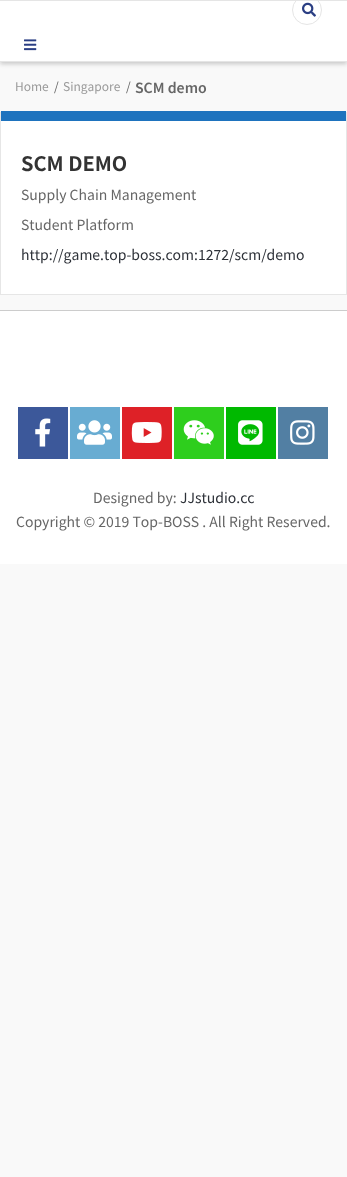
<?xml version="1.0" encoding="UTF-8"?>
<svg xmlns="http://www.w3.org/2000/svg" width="347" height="1177">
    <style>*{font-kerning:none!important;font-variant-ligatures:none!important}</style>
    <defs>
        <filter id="blur1" x="-50%" y="-200%" width="200%" height="500%"><feGaussianBlur stdDeviation="2"/></filter>
    </defs>
    <rect width="100%" height="100%" fill="#F9F9F9"/>
    <rect x="0" y="2" width="347" height="62" fill="#000000" fill-opacity="0.2" filter="url(#blur1)"/>
    <rect x="0" y="1" width="347" height="60" fill="#FFFFFF"/>
    <rect x="0" y="0" width="347" height="1" fill="#E5E5E5"/>
    <rect x="0" y="61" width="347" height="1" fill="#E5E5E5"/>
    <circle cx="307" cy="10" r="14.5" fill="none" stroke="#E5E5E5"/>
    <image x="302" y="2" width="14" height="15" href="img_01.png"/>
    <image x="24" y="39" width="13" height="12" href="img_02.png"/>
    <text x="15" y="91" font-family="Noto Sans TC" font-size="12" fill="#999999">Home</text>
    <text x="54" y="91" font-family="Noto Sans TC" font-size="12" fill="#666666">/</text>
    <text x="63" y="91" font-family="Noto Sans TC" font-size="12" fill="#999999">Singapore</text>
    <text x="126" y="91" font-family="Noto Sans TC" font-size="12" fill="#666666">/</text>
    <text x="135" y="93" font-family="Noto Sans TC" font-size="14" font-weight="600" fill="#666666">SCM demo</text>
    <rect x="1" y="121" width="345" height="173" fill="#FFFFFF"/>
    <rect x="346" y="112" width="1" height="183" fill="#E6E6E6"/>
    <rect x="0" y="294" width="347" height="1" fill="#E6E6E6"/>
    <rect x="0" y="112" width="1" height="183" fill="#E6E6E6"/>
    <rect x="1" y="111" width="345" height="10" fill="#1E73BE"/>
    <text x="21" y="171" font-family="Noto Sans TC" font-size="20" font-weight="700" fill="#333333">SCM DEMO</text>
    <text x="21" y="200" font-family="Noto Sans TC" font-size="14" fill="#666666">Supply Chain Management</text>
    <text x="21" y="230" font-family="Noto Sans TC" font-size="14" fill="#666666">Student Platform</text>
    <text x="21" y="260" font-family="Noto Sans TC" font-size="14" fill="#2D3138">http://game.top-boss.com:1272/scm/demo</text>
    <rect x="0" y="311" width="347" height="253" fill="#FFFFFF"/>
    <rect x="0" y="310" width="347" height="1" fill="#CCCCCC"/>
    <rect x="18" y="407" width="50" height="52" fill="#3C589A"/>
    <image x="35" y="418" width="16" height="29" href="img_03.png"/>
    <rect x="70" y="407" width="50" height="52" fill="#68ACD2"/>
    <image x="77" y="420" width="35" height="25" href="img_04.png"/>
    <rect x="122" y="407" width="50" height="52" fill="#DE2127"/>
    <image x="131" y="422" width="31" height="21" href="img_05.png"/>
    <rect x="174" y="407" width="50" height="52" fill="#2ECE1D"/>
    <image x="183" y="420" width="31" height="25" href="img_06.png"/>
    <rect x="226" y="407" width="50" height="52" fill="#00B900"/>
    <image x="238" y="420" width="25" height="25" href="img_07.png"/>
    <rect x="278" y="407" width="50" height="52" fill="#527FA3"/>
    <image x="290" y="420" width="25" height="25" href="img_08.png"/>
    <text x="93" y="503" font-family="Noto Sans TC" font-size="14" fill="#666666">Designed by:</text>
    <text x="180" y="503" font-family="Noto Sans TC" font-size="14" fill="#2D3138">JJstudio.cc</text>
    <text x="16" y="527" font-family="Noto Sans TC" font-size="14" fill="#666666">Copyright © 2019 Top-BOSS . All Right Reserved.</text>
</svg>
